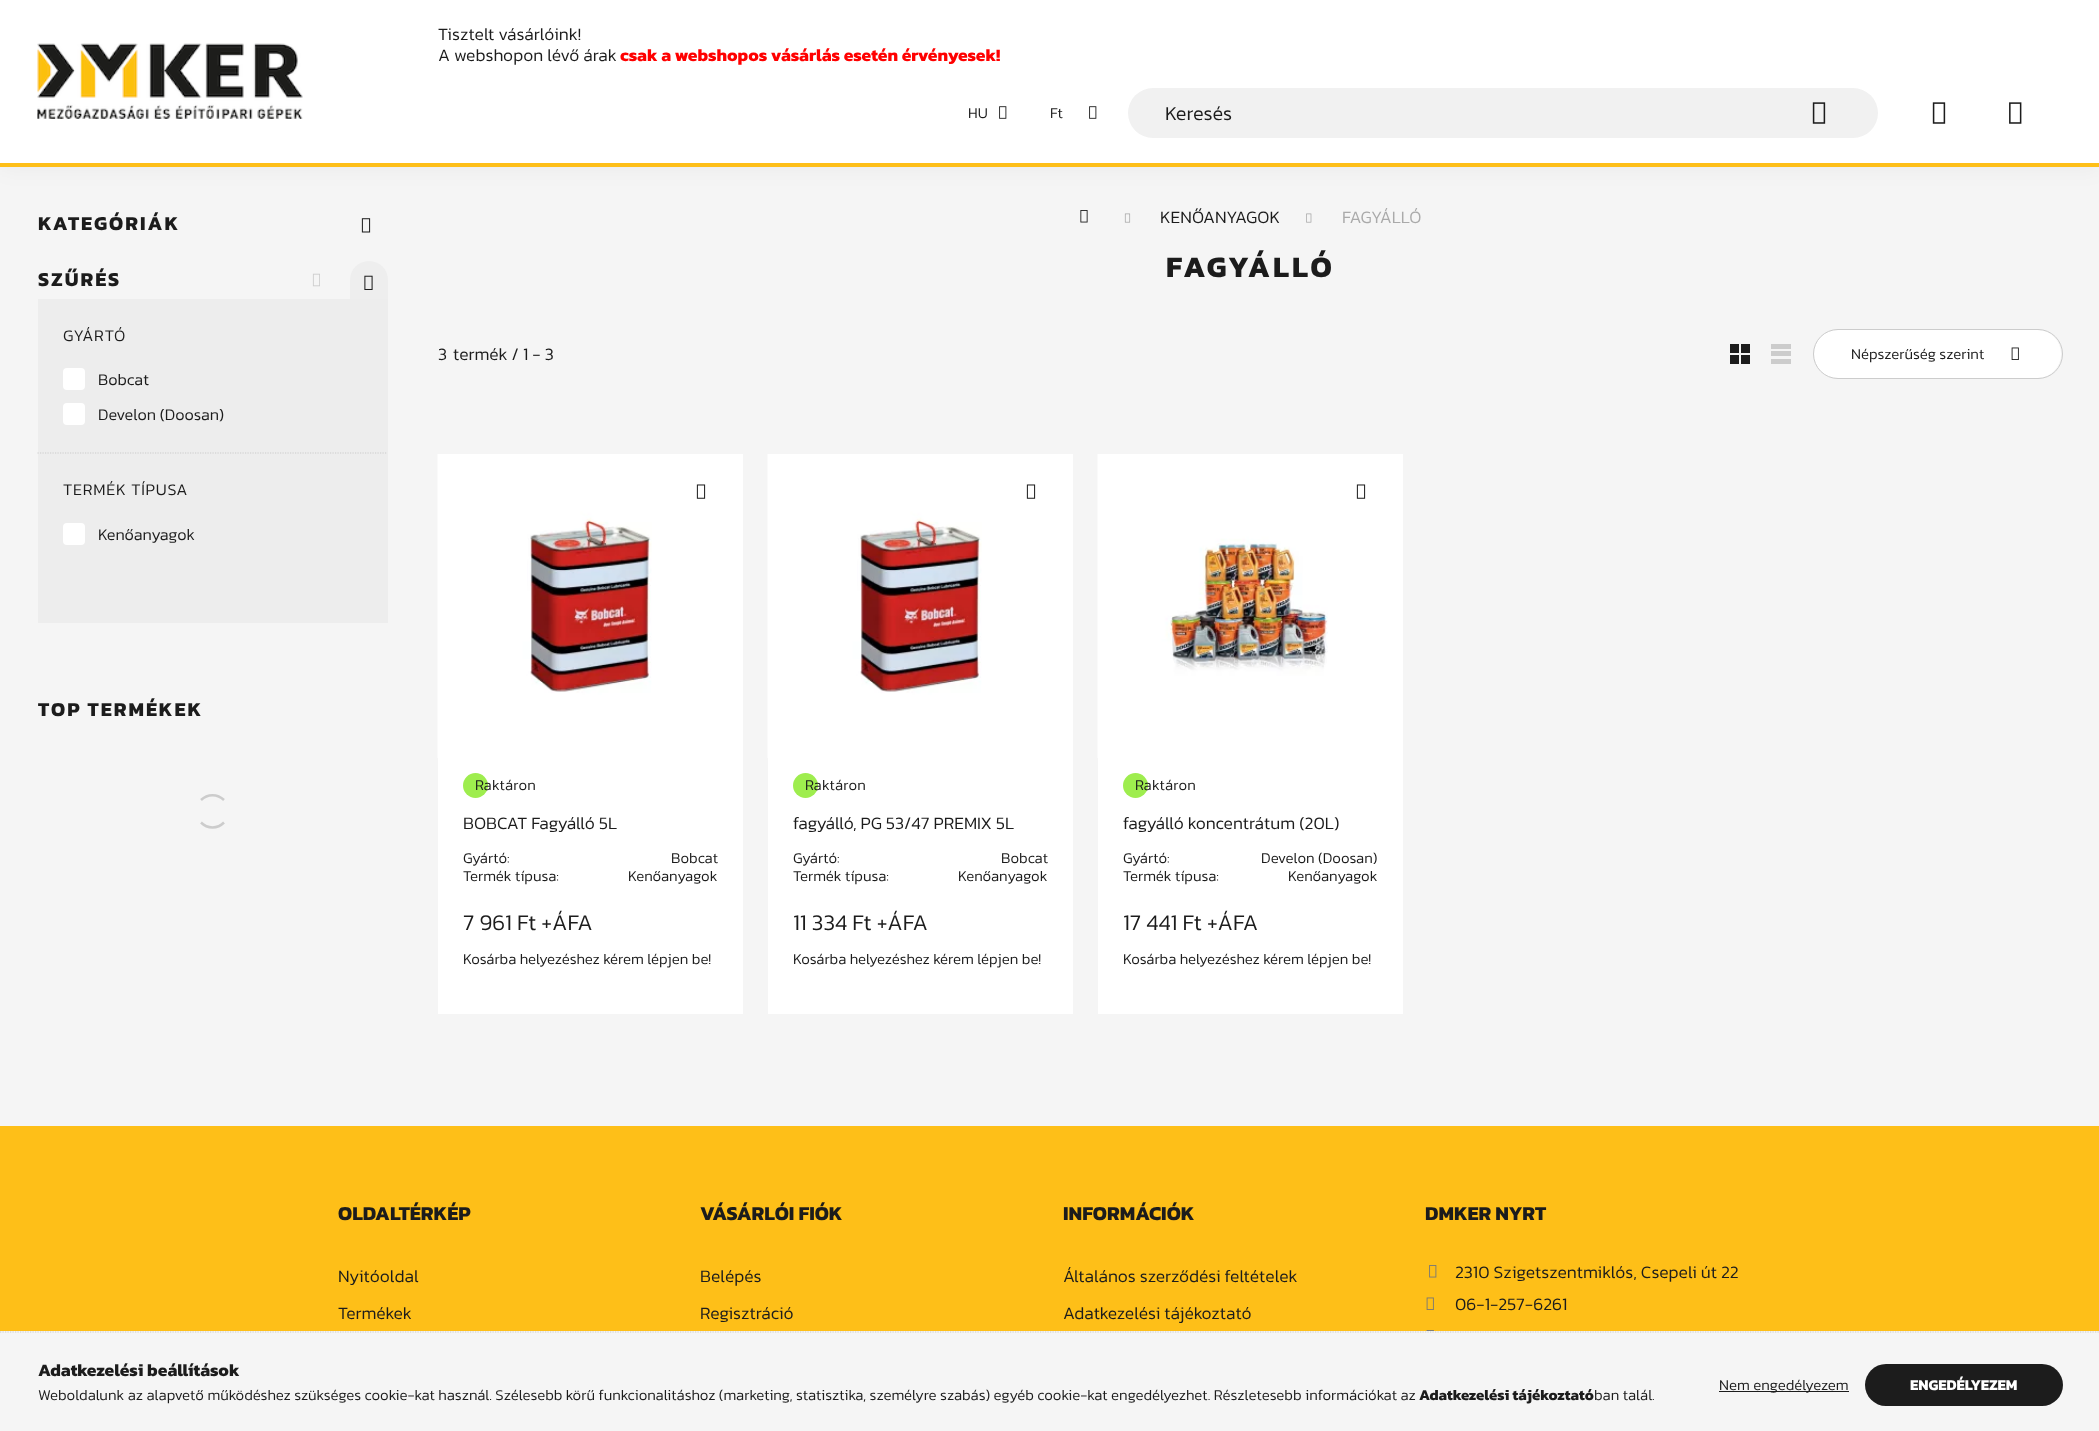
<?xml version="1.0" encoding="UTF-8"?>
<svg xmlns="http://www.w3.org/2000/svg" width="2099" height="1431">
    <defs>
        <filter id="blur1" x="-50%" y="-200%" width="200%" height="500%"><feGaussianBlur stdDeviation="12.5"/></filter>
    </defs>
    <rect width="100%" height="100%" fill="#F5F5F5"/>
    <rect x="0" y="0" width="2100" height="166" fill="#000000" fill-opacity="0.05" filter="url(#blur1)"/>
    <rect x="0" y="0" width="2099" height="163" fill="#FFFFFF"/>
    <rect x="0" y="163" width="2099" height="4" fill="#FEBF18"/>
    <image x="37" y="43" width="266" height="76" href="img_01.png"/>
    <text font-family="Kanit" font-size="17.5" font-weight="300" fill="#1C1C1C">
        <tspan x="438" y="40">Tisztelt vásárlóink!</tspan>
        <tspan x="438" y="61">A webshopon lévő árak</tspan>
    </text>
    <text x="620" y="61" font-family="Kanit" font-size="17.5" font-weight="700" fill="#FF0000">csak a webshopos vásárlás esetén érvényesek!</text>
    <text x="968" y="118" font-family="Kanit" font-size="15" font-weight="300" fill="#1C1C1C">HU</text>
    <image x="999" y="106" width="8" height="13" href="img_02.png"/>
    <text x="1050" y="118" font-family="Kanit" font-size="15" font-weight="300" fill="#1C1C1C">Ft</text>
    <image x="1089" y="106" width="8" height="13" href="img_02.png"/>
    <rect x="1128" y="88" width="750" height="50" rx="25" fill="#F1F1F1"/>
    <text x="1165" y="120" font-family="Kanit" font-size="20" font-weight="300" fill="#1C1C1C">Keresés</text>
    <image x="1812" y="102" width="14" height="22" href="img_03.png"/>
    <image x="1932" y="102" width="14" height="22" href="img_04.png"/>
    <image x="2009" y="102" width="13" height="22" href="img_05.png"/>
    <text x="38" y="230" font-family="Kanit" font-size="20" font-weight="700" letter-spacing="2" fill="#1C1C1C">KATEGÓRIÁK</text>
    <image x="361" y="218" width="10" height="15" href="img_06.png"/>
    <text x="38" y="286" font-family="Kanit" font-size="20" font-weight="700" letter-spacing="2" fill="#1C1C1C">SZŰRÉS</text>
    <image x="312" y="273" width="8" height="14" href="img_07.png"/>
    <path d="M 369 261 C 379.5 261 388 269.5 388 280 V 299 H 350 V 280 C 350 269.5 358.5 261 369 261 Z" fill="#EEEEEE"/>
    <image x="364" y="275" width="9" height="15" href="img_08.png"/>
    <rect x="38" y="299" width="350" height="324" fill="#EDEDED"/>
    <text x="63" y="341" font-family="Kanit" font-size="16.25" font-weight="300" letter-spacing="0.75" fill="#1C1C1C">GYÁRTÓ</text>
    <rect x="63" y="368" width="22" height="22" rx="4" fill="#FFFFFF"/>
    <text x="98" y="385" font-family="Kanit" font-size="16.25" font-weight="300" fill="#1C1C1C">Bobcat</text>
    <rect x="63" y="403" width="22" height="22" rx="4" fill="#FFFFFF"/>
    <text x="98" y="420" font-family="Kanit" font-size="16.25" font-weight="300" fill="#1C1C1C">Develon (Doosan)</text>
    <path d="M 37.5 453 H 387.5" fill="none" stroke="#CCCCCC" stroke-width="1.2" stroke-dasharray="1.25 1.25"/>
    <text x="63" y="495" font-family="Kanit" font-size="16.25" font-weight="300" letter-spacing="0.75" fill="#1C1C1C">TERMÉK TÍPUSA</text>
    <rect x="63" y="523" width="22" height="22" rx="4" fill="#FFFFFF"/>
    <text x="98" y="540" font-family="Kanit" font-size="16.25" font-weight="300" fill="#1C1C1C">Kenőanyagok</text>
    <text x="38" y="716" font-family="Kanit" font-size="20" font-weight="700" letter-spacing="2" fill="#1C1C1C">TOP TERMÉKEK</text>
    <path d="M 201 800 C 207.5 793.5 217.5 793.5 224 800 M 224 822.5 C 217.5 829 207.5 829 201 822.5" fill="none" stroke="#CCCCCC" stroke-width="2.5"/>
    <image x="1080" y="210" width="8" height="13" href="img_09.png"/>
    <image x="1124" y="213" width="7" height="10" href="img_10.png"/>
    <text x="1160" y="223" font-family="Kanit" font-size="17.5" font-weight="300" fill="#1C1C1C">KENŐANYAGOK</text>
    <image x="1306" y="213" width="6" height="10" href="img_11.png"/>
    <text x="1342" y="223" font-family="Kanit" font-size="17.5" font-weight="300" fill="#AAAAAA">FAGYÁLLÓ</text>
    <text x="1166" y="277" font-family="Kanit" font-size="30" font-weight="700" letter-spacing="3" fill="#1C1C1C">FAGYÁLLÓ</text>
    <text x="438" y="360" font-family="Kanit" font-size="17.5" font-weight="300" fill="#1C1C1C">3</text>
    <text x="453" y="360" font-family="Kanit" font-size="17.5" font-weight="300" fill="#1C1C1C">termék / 1 - 3</text>
    <rect x="1730" y="344" width="9" height="9" fill="#1C1C1C"/>
    <rect x="1741" y="344" width="9" height="9" fill="#1C1C1C"/>
    <rect x="1730" y="355" width="9" height="9" fill="#1C1C1C"/>
    <rect x="1741" y="355" width="9" height="9" fill="#1C1C1C"/>
    <rect x="1771" y="344" width="20" height="5" fill="#CCCCCC"/>
    <rect x="1771" y="351" width="20" height="5" fill="#CCCCCC"/>
    <rect x="1771" y="359" width="20" height="5" fill="#CCCCCC"/>
    <rect x="1814" y="330" width="247" height="48" rx="24" fill="#FFFFFF"/>
    <rect x="1813.5" y="329.5" width="249" height="49" rx="24.5" fill="none" stroke="#CCCCCC"/>
    <text x="1851" y="359" font-family="Kanit" font-size="15" font-weight="300" fill="#1C1C1C">Népszerűség szerint</text>
    <image x="2011" y="347" width="8" height="13" href="img_12.png"/>
    <rect x="438" y="454" width="305" height="560" fill="#FFFFFF"/>
    <image x="437" y="454" width="215" height="304" href="img_13.png"/>
    <image x="696" y="484" width="10" height="15" href="img_14.png"/>
    <circle cx="475.5" cy="785.5" r="12.5" fill="#9EED4E"/>
    <text x="475" y="790" font-family="Kanit" font-size="15" font-weight="300" letter-spacing="0.25" fill="#1C1C1C">Raktáron</text>
    <text x="463" y="829" font-family="Kanit" font-size="17.5" font-weight="300" fill="#1C1C1C">BOBCAT Fagyálló 5L</text>
    <text x="463" y="863" font-family="Kanit" font-size="15" font-weight="300" fill="#1C1C1C">Gyártó:</text>
    <text x="671" y="863" font-family="Kanit" font-size="15" font-weight="300" fill="#1C1C1C">Bobcat</text>
    <text x="463" y="881" font-family="Kanit" font-size="15" font-weight="300" fill="#1C1C1C">Termék típusa:</text>
    <text x="628" y="881" font-family="Kanit" font-size="15" font-weight="300" fill="#1C1C1C">Kenőanyagok</text>
    <text x="463" y="930" font-family="Kanit" font-size="22.5" font-weight="300" fill="#1C1C1C">7 961 Ft +ÁFA</text>
    <text x="463" y="964" font-family="Kanit" font-size="15" font-weight="300" fill="#1C1C1C">Kosárba helyezéshez kérem lépjen be!</text>
    <rect x="768" y="454" width="305" height="560" fill="#FFFFFF"/>
    <image x="767" y="454" width="215" height="304" href="img_13.png"/>
    <image x="1026" y="484" width="10" height="15" href="img_14.png"/>
    <circle cx="805.5" cy="785.5" r="12.5" fill="#9EED4E"/>
    <text x="805" y="790" font-family="Kanit" font-size="15" font-weight="300" letter-spacing="0.25" fill="#1C1C1C">Raktáron</text>
    <text x="793" y="829" font-family="Kanit" font-size="17.5" font-weight="300" fill="#1C1C1C">fagyálló, PG 53/47 PREMIX 5L</text>
    <text x="793" y="863" font-family="Kanit" font-size="15" font-weight="300" fill="#1C1C1C">Gyártó:</text>
    <text x="1001" y="863" font-family="Kanit" font-size="15" font-weight="300" fill="#1C1C1C">Bobcat</text>
    <text x="793" y="881" font-family="Kanit" font-size="15" font-weight="300" fill="#1C1C1C">Termék típusa:</text>
    <text x="958" y="881" font-family="Kanit" font-size="15" font-weight="300" fill="#1C1C1C">Kenőanyagok</text>
    <text x="793" y="930" font-family="Kanit" font-size="22.5" font-weight="300" fill="#1C1C1C">11 334 Ft +ÁFA</text>
    <text x="793" y="964" font-family="Kanit" font-size="15" font-weight="300" fill="#1C1C1C">Kosárba helyezéshez kérem lépjen be!</text>
    <rect x="1098" y="454" width="305" height="560" fill="#FFFFFF"/>
    <image x="1097" y="454" width="231" height="304" href="img_15.png"/>
    <image x="1356" y="484" width="10" height="15" href="img_14.png"/>
    <circle cx="1135.5" cy="785.5" r="12.5" fill="#9EED4E"/>
    <text x="1135" y="790" font-family="Kanit" font-size="15" font-weight="300" letter-spacing="0.25" fill="#1C1C1C">Raktáron</text>
    <text x="1123" y="829" font-family="Kanit" font-size="17.5" font-weight="300" fill="#1C1C1C">fagyálló koncentrátum (20L)</text>
    <text x="1123" y="863" font-family="Kanit" font-size="15" font-weight="300" fill="#1C1C1C">Gyártó:</text>
    <text x="1261" y="863" font-family="Kanit" font-size="15" font-weight="300" fill="#1C1C1C">Develon (Doosan)</text>
    <text x="1123" y="881" font-family="Kanit" font-size="15" font-weight="300" fill="#1C1C1C">Termék típusa:</text>
    <text x="1288" y="881" font-family="Kanit" font-size="15" font-weight="300" fill="#1C1C1C">Kenőanyagok</text>
    <text x="1123" y="930" font-family="Kanit" font-size="22.5" font-weight="300" fill="#1C1C1C">17 441 Ft +ÁFA</text>
    <text x="1123" y="964" font-family="Kanit" font-size="15" font-weight="300" fill="#1C1C1C">Kosárba helyezéshez kérem lépjen be!</text>
    <rect x="0" y="1126" width="2099" height="205" fill="#FEBF18"/>
    <text x="338" y="1220" font-family="Kanit" font-size="20" font-weight="700" fill="#1C1C1C">OLDALTÉRKÉP</text>
    <text x="338" y="1282" font-family="Kanit" font-size="17.5" font-weight="300" fill="#1C1C1C">Nyitóoldal</text>
    <text x="338" y="1319" font-family="Kanit" font-size="17.5" font-weight="300" fill="#1C1C1C">Termékek</text>
    <text x="700" y="1220" font-family="Kanit" font-size="20" font-weight="700" fill="#1C1C1C">VÁSÁRLÓI FIÓK</text>
    <text x="700" y="1282" font-family="Kanit" font-size="17.5" font-weight="300" fill="#1C1C1C">Belépés</text>
    <text x="700" y="1319" font-family="Kanit" font-size="17.5" font-weight="300" fill="#1C1C1C">Regisztráció</text>
    <text x="1063" y="1220" font-family="Kanit" font-size="20" font-weight="700" fill="#1C1C1C">INFORMÁCIÓK</text>
    <text x="1063" y="1282" font-family="Kanit" font-size="17.5" font-weight="300" fill="#1C1C1C">Általános szerződési feltételek</text>
    <text x="1063" y="1319" font-family="Kanit" font-size="17.5" font-weight="300" fill="#1C1C1C">Adatkezelési tájékoztató</text>
    <text x="1425" y="1220" font-family="Kanit" font-size="20" font-weight="700" fill="#1C1C1C">DMKER NYRT</text>
    <image x="1429" y="1265" width="8" height="13" href="img_16.png"/>
    <text x="1455" y="1278" font-family="Kanit" font-size="17.5" font-weight="300" fill="#1C1C1C">2310 Szigetszentmiklós, Csepeli út 22</text>
    <image x="1426" y="1297" width="8" height="13" href="img_17.png"/>
    <text x="1455" y="1310" font-family="Kanit" font-size="17.5" font-weight="300" fill="#1C1C1C">06-1-257-6261</text>
    <image x="1426" y="1330" width="8" height="1" href="img_18.png"/>
    <path d="M 0 1332 H 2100" fill="none" stroke="#CCCCCC" stroke-width="1.2" stroke-dasharray="1.25 1.25"/>
    <text x="38" y="1376" font-family="Kanit" font-size="17.5" font-weight="700" fill="#1C1C1C">Adatkezelési beállítások</text>
    <text x="38" y="1400" font-family="Kanit" font-size="15" font-weight="300" fill="#1C1C1C">Weboldalunk az alapvető működéshez szükséges cookie-kat használ. Szélesebb körű funkcionalitáshoz (marketing, statisztika, személyre szabás) egyéb cookie-kat engedélyezhet. Részletesebb információkat az</text>
    <text x="1419" y="1400" font-family="Kanit" font-size="15" font-weight="700" fill="#1C1C1C">Adatkezelési tájékoztató</text>
    <text x="1594" y="1400" font-family="Kanit" font-size="15" font-weight="300" fill="#1C1C1C">ban talál.</text>
    <rect x="1719" y="1391" width="130" height="1" fill="#1C1C1C"/>
    <text x="1719" y="1390" font-family="Kanit" font-size="15" font-weight="300" fill="#1C1C1C">Nem engedélyezem</text>
    <rect x="1865" y="1364" width="198" height="42" rx="21" fill="#1C1C1C"/>
    <text x="1910" y="1390" font-family="Kanit" font-size="15" font-weight="700" fill="#FFFFFF">ENGEDÉLYEZEM</text>
</svg>
